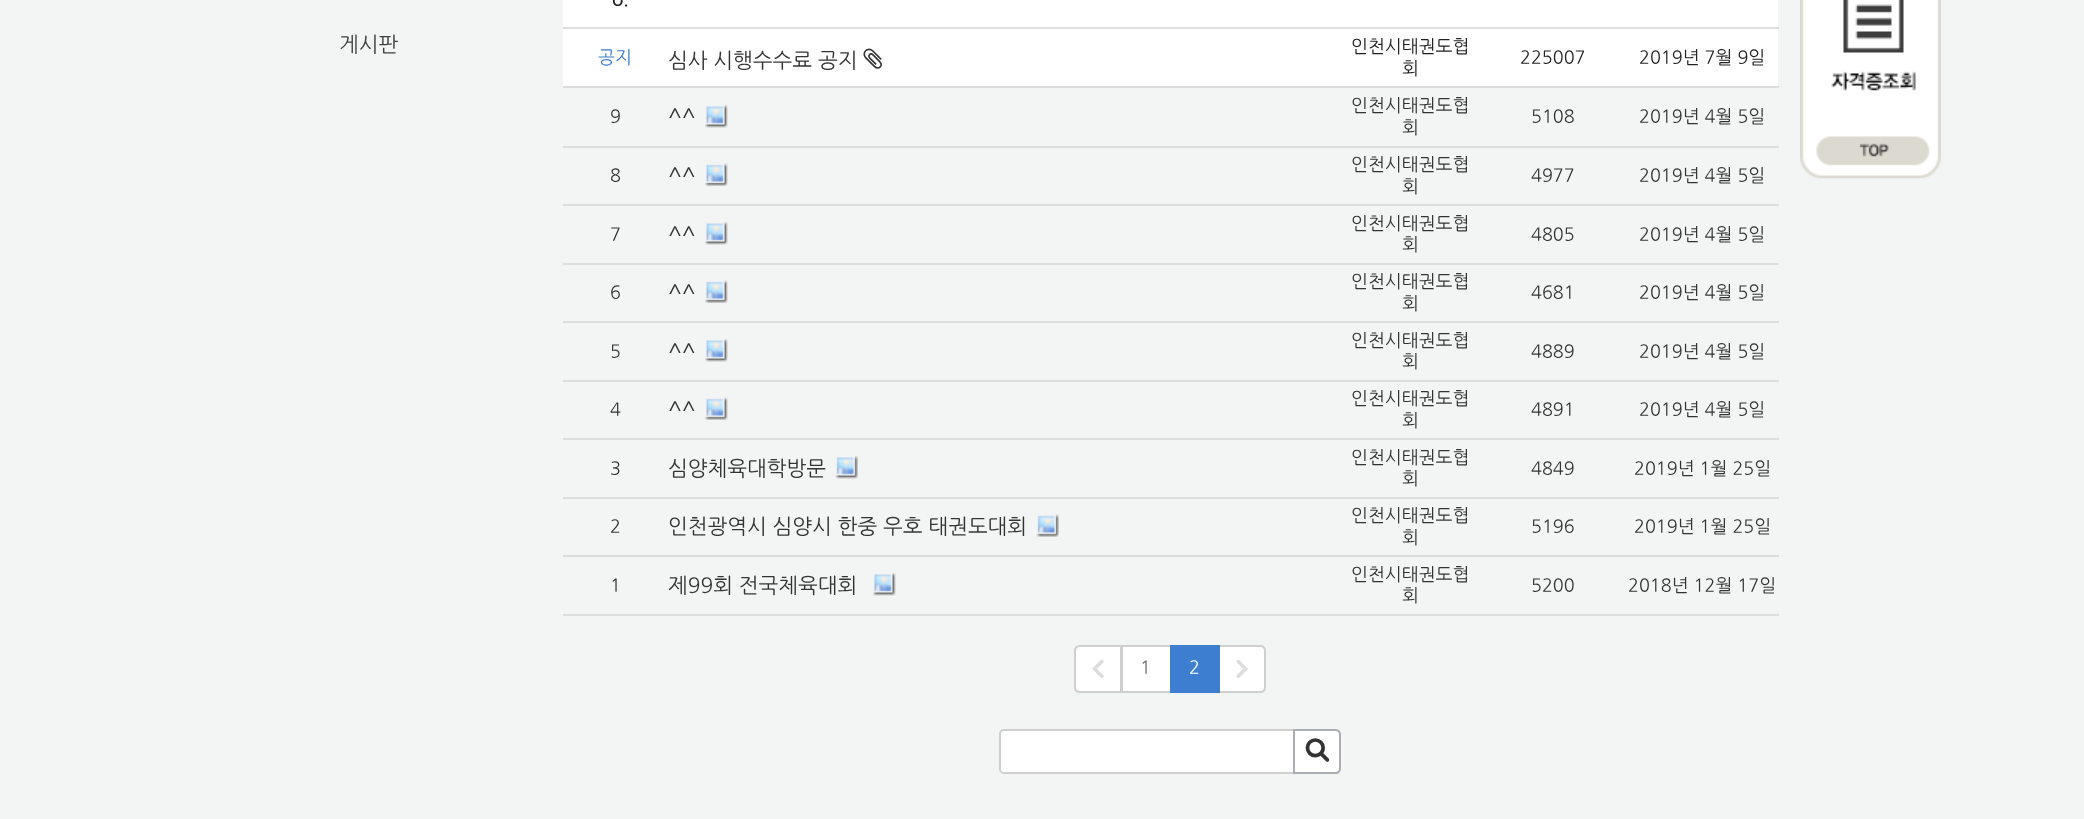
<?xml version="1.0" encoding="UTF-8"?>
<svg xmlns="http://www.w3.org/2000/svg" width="2084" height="819">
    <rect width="100%" height="100%" fill="#F3F5F4"/>
    <text x="339" y="51" font-family="NanumGothic" font-size="21" fill="#3E3E3E">게시판</text>
    <rect x="563" y="0" width="1215" height="27" fill="#FFFFFF"/>
    <text x="612" y="5" font-family="NanumGothic" font-size="18" font-weight="700" fill="#222222">o.</text>
    <rect x="563" y="27" width="1216" height="2" fill="#DDDDDD"/>
    <rect x="563" y="29" width="1215" height="57" fill="#FFFFFF"/>
    <text x="598" y="63" font-family="NanumGothic" font-size="18" fill="#3D7ED1">공지</text>
    <text x="668" y="67" font-family="NanumGothic" font-size="21" fill="#333333">심사 시행수수료 공지</text>
    <text x="863" y="67" font-family="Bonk" font-size="30" fill="#333333">c</text>
    <text x="1351" y="52" font-family="NanumGothic" font-size="18" fill="#222222">인천시태권도협</text>
    <text x="1402" y="74" font-family="NanumGothic" font-size="18" fill="#222222">회</text>
    <text x="1520" y="63" font-family="NanumGothic" font-size="18" fill="#222222">225007</text>
    <rect x="563" y="86" width="1216" height="2" fill="#DDDDDD"/>
    <text x="1639" y="63" font-family="NanumGothic" font-size="18" fill="#222222">2019년 7월 9일</text>
    <text x="610" y="122" font-family="NanumGothic" font-size="18" fill="#333333">9</text>
    <text x="668" y="123" font-family="NanumGothic" font-size="21" fill="#333333">^^</text>
    <image x="705" y="105" width="23" height="23" href="img_01.png"/>
    <text x="1351" y="111" font-family="NanumGothic" font-size="18" fill="#333333">인천시태권도협</text>
    <text x="1402" y="133" font-family="NanumGothic" font-size="18" fill="#333333">회</text>
    <text x="1531" y="122" font-family="NanumGothic" font-size="18" fill="#333333">5108</text>
    <rect x="563" y="146" width="1216" height="2" fill="#DDDDDD"/>
    <text x="1639" y="122" font-family="NanumGothic" font-size="18" fill="#333333">2019년 4월 5일</text>
    <text x="610" y="181" font-family="NanumGothic" font-size="18" fill="#333333">8</text>
    <text x="668" y="182" font-family="NanumGothic" font-size="21" fill="#333333">^^</text>
    <image x="705" y="163" width="23" height="23" href="img_02.png"/>
    <text x="1351" y="170" font-family="NanumGothic" font-size="18" fill="#333333">인천시태권도협</text>
    <text x="1402" y="192" font-family="NanumGothic" font-size="18" fill="#333333">회</text>
    <text x="1531" y="181" font-family="NanumGothic" font-size="18" fill="#333333">4977</text>
    <rect x="563" y="204" width="1216" height="2" fill="#DDDDDD"/>
    <text x="1639" y="181" font-family="NanumGothic" font-size="18" fill="#333333">2019년 4월 5일</text>
    <text x="610" y="240" font-family="NanumGothic" font-size="18" fill="#333333">7</text>
    <text x="668" y="241" font-family="NanumGothic" font-size="21" fill="#333333">^^</text>
    <image x="705" y="222" width="23" height="23" href="img_01.png"/>
    <text x="1351" y="229" font-family="NanumGothic" font-size="18" fill="#333333">인천시태권도협</text>
    <text x="1402" y="250" font-family="NanumGothic" font-size="18" fill="#333333">회</text>
    <text x="1531" y="240" font-family="NanumGothic" font-size="18" fill="#333333">4805</text>
    <rect x="563" y="263" width="1216" height="2" fill="#DDDDDD"/>
    <text x="1639" y="240" font-family="NanumGothic" font-size="18" fill="#333333">2019년 4월 5일</text>
    <text x="610" y="298" font-family="NanumGothic" font-size="18" fill="#333333">6</text>
    <text x="668" y="299" font-family="NanumGothic" font-size="21" fill="#333333">^^</text>
    <image x="705" y="280" width="23" height="23" href="img_02.png"/>
    <text x="1351" y="287" font-family="NanumGothic" font-size="18" fill="#333333">인천시태권도협</text>
    <text x="1402" y="309" font-family="NanumGothic" font-size="18" fill="#333333">회</text>
    <text x="1531" y="298" font-family="NanumGothic" font-size="18" fill="#333333">4681</text>
    <rect x="563" y="321" width="1216" height="2" fill="#DDDDDD"/>
    <text x="1639" y="298" font-family="NanumGothic" font-size="18" fill="#333333">2019년 4월 5일</text>
    <text x="610" y="357" font-family="NanumGothic" font-size="18" fill="#333333">5</text>
    <text x="668" y="358" font-family="NanumGothic" font-size="21" fill="#333333">^^</text>
    <image x="705" y="339" width="23" height="23" href="img_01.png"/>
    <text x="1351" y="346" font-family="NanumGothic" font-size="18" fill="#333333">인천시태권도협</text>
    <text x="1402" y="367" font-family="NanumGothic" font-size="18" fill="#333333">회</text>
    <text x="1531" y="357" font-family="NanumGothic" font-size="18" fill="#333333">4889</text>
    <rect x="563" y="380" width="1216" height="2" fill="#DDDDDD"/>
    <text x="1639" y="357" font-family="NanumGothic" font-size="18" fill="#333333">2019년 4월 5일</text>
    <text x="610" y="415" font-family="NanumGothic" font-size="18" fill="#333333">4</text>
    <text x="668" y="416" font-family="NanumGothic" font-size="21" fill="#333333">^^</text>
    <image x="705" y="397" width="23" height="23" href="img_02.png"/>
    <text x="1351" y="404" font-family="NanumGothic" font-size="18" fill="#333333">인천시태권도협</text>
    <text x="1402" y="426" font-family="NanumGothic" font-size="18" fill="#333333">회</text>
    <text x="1531" y="415" font-family="NanumGothic" font-size="18" fill="#333333">4891</text>
    <rect x="563" y="438" width="1216" height="2" fill="#DDDDDD"/>
    <text x="1639" y="415" font-family="NanumGothic" font-size="18" fill="#333333">2019년 4월 5일</text>
    <text x="610" y="474" font-family="NanumGothic" font-size="18" fill="#333333">3</text>
    <text x="668" y="475" font-family="NanumGothic" font-size="21" fill="#333333">심양체육대학방문</text>
    <image x="835" y="456" width="23" height="23" href="img_03.png"/>
    <text x="1351" y="463" font-family="NanumGothic" font-size="18" fill="#333333">인천시태권도협</text>
    <text x="1402" y="484" font-family="NanumGothic" font-size="18" fill="#333333">회</text>
    <text x="1531" y="474" font-family="NanumGothic" font-size="18" fill="#333333">4849</text>
    <rect x="563" y="497" width="1216" height="2" fill="#DDDDDD"/>
    <text x="1634" y="474" font-family="NanumGothic" font-size="18" fill="#333333">2019년 1월 25일</text>
    <text x="610" y="532" font-family="NanumGothic" font-size="18" fill="#333333">2</text>
    <text x="668" y="533" font-family="NanumGothic" font-size="21" fill="#333333">인천광역시 심양시 한중 우호 태권도대회</text>
    <image x="1036" y="514" width="23" height="23" href="img_04.png"/>
    <text x="1351" y="521" font-family="NanumGothic" font-size="18" fill="#333333">인천시태권도협</text>
    <text x="1402" y="543" font-family="NanumGothic" font-size="18" fill="#333333">회</text>
    <text x="1531" y="532" font-family="NanumGothic" font-size="18" fill="#333333">5196</text>
    <rect x="563" y="555" width="1216" height="2" fill="#DDDDDD"/>
    <text x="1634" y="532" font-family="NanumGothic" font-size="18" fill="#333333">2019년 1월 25일</text>
    <text x="610" y="591" font-family="NanumGothic" font-size="18" fill="#333333">1</text>
    <text x="668" y="592" font-family="NanumGothic" font-size="21" fill="#333333">제99회 전국체육대회</text>
    <image x="873" y="573" width="23" height="23" href="img_05.png"/>
    <text x="1351" y="580" font-family="NanumGothic" font-size="18" fill="#333333">인천시태권도협</text>
    <text x="1402" y="601" font-family="NanumGothic" font-size="18" fill="#333333">회</text>
    <text x="1531" y="591" font-family="NanumGothic" font-size="18" fill="#333333">5200</text>
    <rect x="563" y="614" width="1216" height="2" fill="#DDDDDD"/>
    <text x="1628" y="591" font-family="NanumGothic" font-size="18" fill="#333333">2018년 12월 17일</text>
    <path d="M 1080 646 H 1121 V 692 H 1080 C 1077 692 1075 690 1075 687 V 651 C 1075 648 1077 646 1080 646 Z" fill="#FFFFFF" stroke="#CFCFCF" stroke-width="2"/>
    <text x="1091" y="679" font-family="Bonk" font-size="30" fill="#DDDDDD">a</text>
    <rect x="1122" y="646" width="49" height="46" fill="#FFFFFF" stroke="#CFCFCF" stroke-width="2"/>
    <text x="1140" y="673" font-family="NanumGothic" font-size="18" fill="#686868">1</text>
    <path d="M 1219 646 H 1260 C 1263 646 1265 648 1265 651 V 687 C 1265 690 1263 692 1260 692 H 1219 Z" fill="#FFFFFF" stroke="#CFCFCF" stroke-width="2"/>
    <rect x="1170" y="645" width="50" height="48" fill="#3D7ED1"/>
    <text x="1189" y="673" font-family="NanumGothic" font-size="18" fill="#FFFFFF">2</text>
    <text x="1234" y="679" font-family="Bonk" font-size="30" fill="#DDDDDD">d</text>
    <rect x="1000" y="730" width="298" height="43" rx="4" fill="#FFFFFF" stroke="#CFCFCF" stroke-width="2"/>
    <path d="M 1294 730 H 1336 C 1338 730 1340 732 1340 734 V 769 C 1340 771 1338 773 1336 773 H 1294 Z" fill="#FFFFFF" stroke="#ABADB3" stroke-width="2"/>
    <text x="1305" y="762" font-family="Bonk" font-size="36" fill="#333333">s</text>
    <image x="1800" y="0" width="141" height="179" href="img_06.png"/>
</svg>
